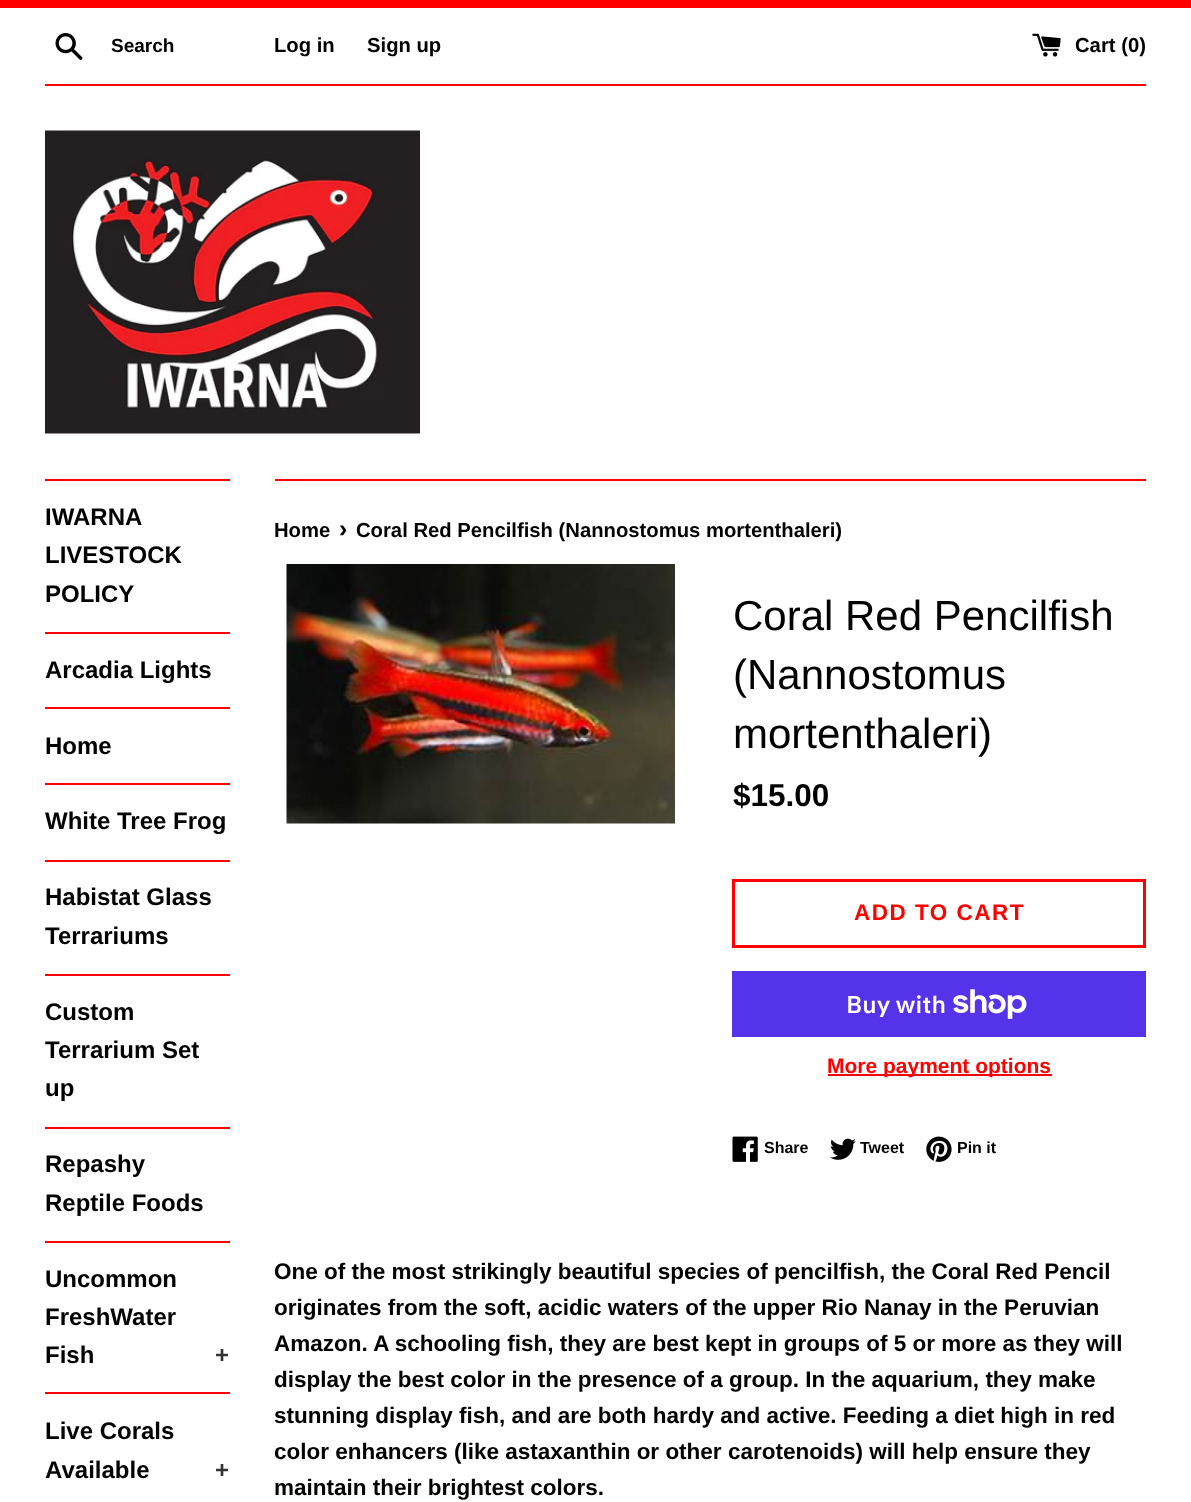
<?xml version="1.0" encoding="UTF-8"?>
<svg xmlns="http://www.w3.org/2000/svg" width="1191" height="1502">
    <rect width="100%" height="100%" fill="#FFFFFF"/>
    <rect x="0" y="0" width="1191" height="8" fill="#FF0000"/>
    <image x="55" y="33" width="28" height="27" href="img_01.png"/>
    <text x="111" y="52" font-family="Arimo" font-size="19" font-weight="700" fill="#000000">Search</text>
    <text x="274" y="52" font-family="Arimo" font-size="20.25" font-weight="700" fill="#000000">Log in</text>
    <text x="367" y="52" font-family="Arimo" font-size="20.25" font-weight="700" fill="#000000">Sign up</text>
    <image x="1032" y="33" width="29" height="24" href="img_02.png"/>
    <text x="1075" y="52" font-family="Arimo" font-size="20.25" font-weight="700" fill="#000000">Cart (0)</text>
    <rect x="45" y="84" width="1101" height="2" fill="#FF0000"/>
    <image x="45" y="130" width="375" height="304" href="img_03.png"/>
    <rect x="45" y="479" width="185" height="2" fill="#FF0000"/>
    <rect x="45" y="632" width="185" height="2" fill="#FF0000"/>
    <text font-family="Arimo" font-size="24" font-weight="700" fill="#000000">
        <tspan x="45" y="525">IWARNA</tspan>
        <tspan x="45" y="563">LIVESTOCK</tspan>
        <tspan x="45" y="602">POLICY</tspan>
    </text>
    <rect x="45" y="707" width="185" height="2" fill="#FF0000"/>
    <text x="45" y="678" font-family="Arimo" font-size="24" font-weight="700" fill="#000000">Arcadia Lights</text>
    <rect x="45" y="783" width="185" height="2" fill="#FF0000"/>
    <text x="45" y="754" font-family="Arimo" font-size="24" font-weight="700" fill="#000000">Home</text>
    <rect x="45" y="860" width="185" height="2" fill="#FF0000"/>
    <text x="45" y="829" font-family="Arimo" font-size="24" font-weight="700" fill="#000000">White Tree Frog</text>
    <rect x="45" y="974" width="185" height="2" fill="#FF0000"/>
    <text font-family="Arimo" font-size="24" font-weight="700" fill="#000000">
        <tspan x="45" y="905">Habistat Glass</tspan>
        <tspan x="45" y="944">Terrariums</tspan>
    </text>
    <rect x="45" y="1127" width="185" height="2" fill="#FF0000"/>
    <text font-family="Arimo" font-size="24" font-weight="700" fill="#000000">
        <tspan x="45" y="1020">Custom</tspan>
        <tspan x="45" y="1058">Terrarium Set</tspan>
        <tspan x="45" y="1096">up</tspan>
    </text>
    <rect x="45" y="1241" width="185" height="2" fill="#FF0000"/>
    <text font-family="Arimo" font-size="24" font-weight="700" fill="#000000">
        <tspan x="45" y="1172">Repashy</tspan>
        <tspan x="45" y="1211">Reptile Foods</tspan>
    </text>
    <rect x="45" y="1392" width="185" height="2" fill="#FF0000"/>
    <text font-family="Arimo" font-size="24" font-weight="700" fill="#000000">
        <tspan x="45" y="1287">Uncommon</tspan>
        <tspan x="45" y="1325">FreshWater</tspan>
        <tspan x="45" y="1363">Fish</tspan>
    </text>
    <text x="215" y="1363" font-family="Arimo" font-size="24" font-weight="700" fill="#333333">+</text>
    <text font-family="Arimo" font-size="24" font-weight="700" fill="#000000">
        <tspan x="45" y="1439">Live Corals</tspan>
        <tspan x="45" y="1478">Available</tspan>
    </text>
    <text x="215" y="1478" font-family="Arimo" font-size="24" font-weight="700" fill="#333333">+</text>
    <rect x="275" y="479" width="871" height="2" fill="#FF0000"/>
    <text x="274" y="537" font-family="Arimo" font-size="20.25" font-weight="700" fill="#000000">Home</text>
    <text x="339" y="537" font-family="Arimo" font-size="25" font-weight="700" fill="#000000">›</text>
    <text x="356" y="537" font-family="Arimo" font-size="20.25" font-weight="700" fill="#000000">Coral Red Pencilfish (Nannostomus mortenthaleri)</text>
    <image x="286" y="564" width="389" height="260" href="img_04.png"/>
    <text font-family="Arimo" font-size="42" fill="#000000">
        <tspan x="733" y="630">Coral Red Pencilfish</tspan>
        <tspan x="733" y="689">(Nannostomus</tspan>
        <tspan x="733" y="748">mortenthaleri)</tspan>
    </text>
    <text x="733" y="806" font-family="Arimo" font-size="31.5" font-weight="700" fill="#000000">$15.00</text>
    <rect x="733.5" y="880.5" width="411" height="66" fill="none" stroke="#FF0000" stroke-width="3"/>
    <text x="854" y="920" font-family="Arimo" font-size="22.5" font-weight="700" letter-spacing="1.5" fill="#FF0000">ADD TO CART</text>
    <rect x="732" y="971" width="414" height="66" fill="#5433EB"/>
    <text x="846" y="1013" font-family="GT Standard" font-size="24" font-weight="600" fill="#FFFFFF">Buy with</text>
    <image x="953" y="989" width="74" height="30" href="img_05.png"/>
    <rect x="828" y="1074" width="224" height="2" fill="#FF0000"/>
    <text x="827" y="1073" font-family="Arimo" font-size="21" font-weight="700" fill="#FF0000">More payment options</text>
    <image x="732" y="1136" width="26" height="26" href="img_06.png"/>
    <text x="764" y="1153" font-family="Arimo" font-size="16" font-weight="700" fill="#000000">Share</text>
    <image x="830" y="1138" width="26" height="22" href="img_07.png"/>
    <text x="860" y="1153" font-family="Arimo" font-size="16" font-weight="700" fill="#000000">Tweet</text>
    <image x="926" y="1136" width="26" height="26" href="img_08.png"/>
    <text x="957" y="1153" font-family="Arimo" font-size="16" font-weight="700" fill="#000000">Pin it</text>
    <text font-family="Arimo" font-size="22.5" font-weight="700" fill="#000000">
        <tspan x="274" y="1279">One of the most strikingly beautiful species of pencilfish, the Coral Red Pencil</tspan>
        <tspan x="274" y="1315">originates from the soft, acidic waters of the upper Rio Nanay in the Peruvian</tspan>
        <tspan x="274" y="1351">Amazon. A schooling fish, they are best kept in groups of 5 or more as they will</tspan>
        <tspan x="274" y="1387">display the best color in the presence of a group. In the aquarium, they make</tspan>
        <tspan x="274" y="1423">stunning display fish, and are both hardy and active. Feeding a diet high in red</tspan>
        <tspan x="274" y="1459">color enhancers (like astaxanthin or other carotenoids) will help ensure they</tspan>
        <tspan x="274" y="1495">maintain their brightest colors.</tspan>
    </text>
</svg>
